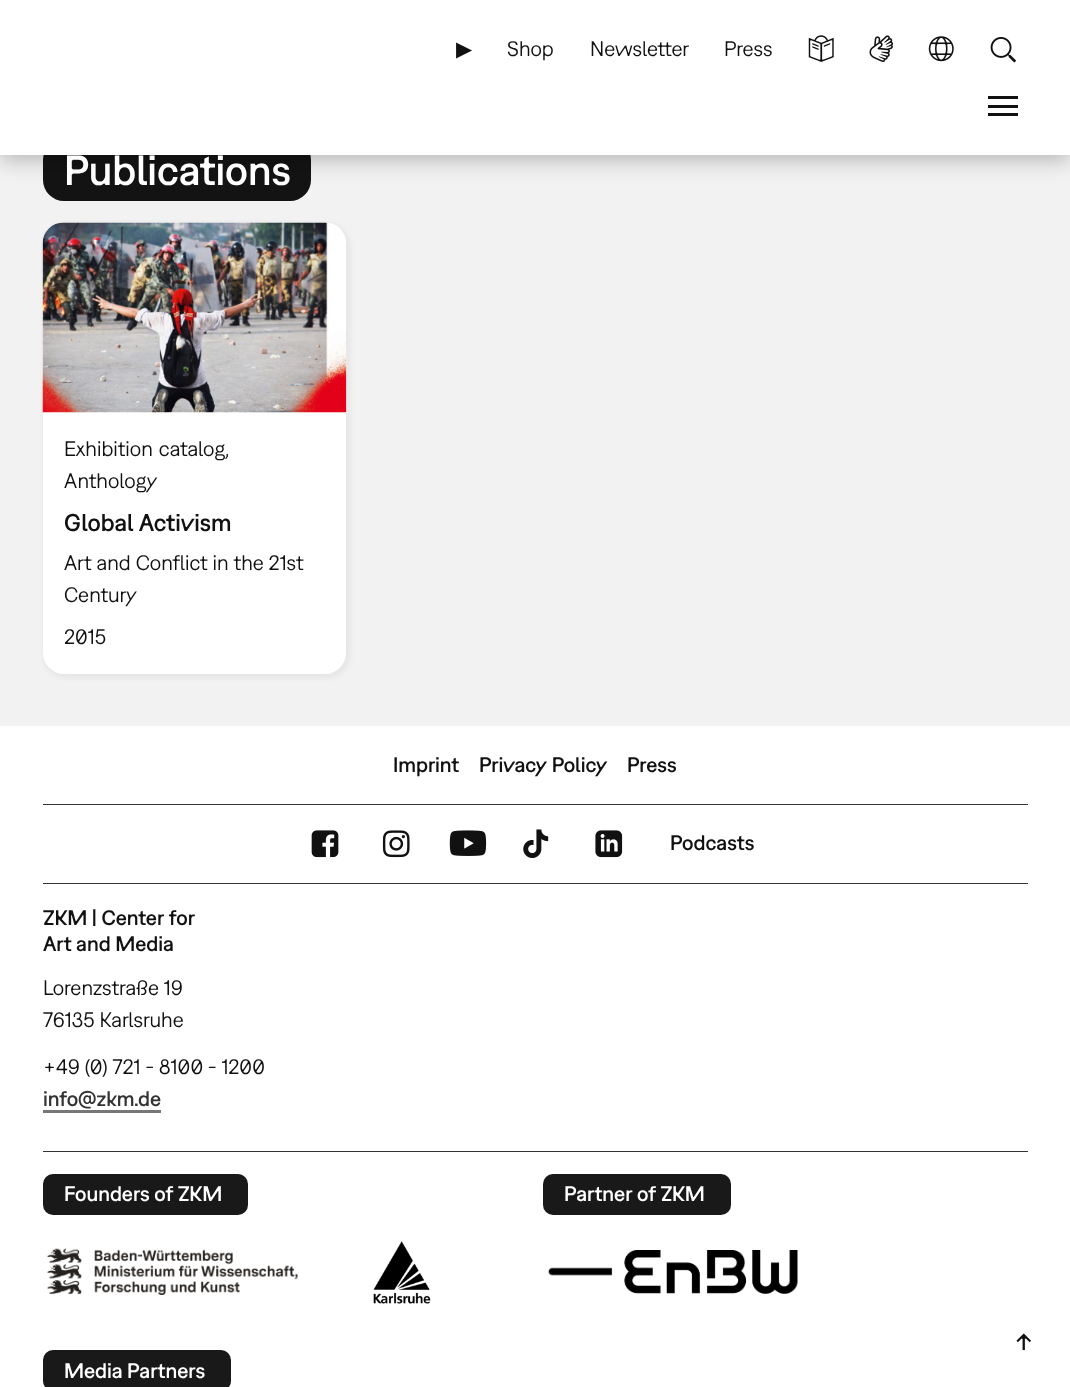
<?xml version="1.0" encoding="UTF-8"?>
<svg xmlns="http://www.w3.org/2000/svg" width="1070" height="1387">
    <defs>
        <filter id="blur1" x="-50%" y="-200%" width="200%" height="500%"><feGaussianBlur stdDeviation="10.5"/></filter>
        <filter id="blur2" x="-50%" y="-200%" width="200%" height="500%"><feGaussianBlur stdDeviation="2.5"/></filter>
    </defs>
    <rect width="100%" height="100%" fill="#FFFFFF"/>
    <rect x="0" y="155" width="1070" height="571" fill="#F2F2F2"/>
    <rect x="43" y="139" width="268" height="62" rx="21" fill="#131313"/>
    <rect x="0" y="5" width="1070" height="155" fill="#000000" fill-opacity="0.25" filter="url(#blur1)"/>
    <rect x="0" y="0" width="1070" height="155" fill="#FFFFFF"/>
    <text x="456" y="56" font-family="DejaVu Sans" font-size="21" fill="#111111">▶</text>
    <text x="507" y="56" font-family="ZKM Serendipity" font-size="21" fill="#111111">Shop</text>
    <text x="590" y="56" font-family="ZKM Serendipity" font-size="21" fill="#111111">Newsletter</text>
    <text x="724" y="56" font-family="ZKM Serendipity" font-size="21" fill="#111111">Press</text>
    <image x="808" y="35" width="26" height="27" href="img_01.png"/>
    <image x="869" y="35" width="24" height="27" href="img_02.png"/>
    <image x="928" y="36" width="26" height="26" href="img_03.png"/>
    <image x="990" y="37" width="27" height="26" href="img_04.png"/>
    <rect x="988" y="96" width="30" height="3" fill="#111111"/>
    <rect x="988" y="105" width="30" height="3" fill="#111111"/>
    <rect x="988" y="113" width="30" height="3" fill="#111111"/>
    <text x="64" y="185" font-family="ZKM Serendipity" font-size="42" font-weight="500" fill="#FFFFFF">Publications</text>
    <rect x="43" y="223" width="307" height="455" rx="23" fill="#000000" fill-opacity="0.05" filter="url(#blur2)"/>
    <rect x="43" y="223" width="303" height="451" rx="21" fill="#FFFFFF"/>
    <path d="M 64 223 H 325 C 336.5 223 346 232.5 346 244 V 413 H 43 V 244 C 43 232.5 52.5 223 64 223 Z" fill="#FFFFFF"/>
    <image x="42" y="222" width="305" height="191" href="img_05.png"/>
    <text x="64" y="456" word-spacing="1" font-family="ZKM Serendipity" font-size="21" fill="#111111">Exhibition catalog</text>
    <text x="225" y="456" font-family="ZKM Serendipity" font-size="21" fill="#111111">,</text>
    <text x="64" y="488" font-family="ZKM Serendipity" font-size="21" fill="#111111">Anthology</text>
    <text x="64" y="531" font-family="ZKM Serendipity" font-size="24.25" font-weight="500" fill="#111111">Global Activism</text>
    <text font-family="ZKM Serendipity" font-size="21" fill="#111111">
        <tspan x="64" y="570">Art and Conflict in the 21st</tspan>
        <tspan x="64" y="602">Century</tspan>
    </text>
    <text x="64" y="644" font-family="ZKM Serendipity" font-size="21" fill="#111111">2015</text>
    <text x="393" y="772" font-family="ZKM Serendipity" font-size="21" font-weight="500" fill="#111111">Imprint</text>
    <text x="479" y="772" font-family="ZKM Serendipity" font-size="21" font-weight="500" fill="#111111">Privacy Policy</text>
    <text x="627" y="772" font-family="ZKM Serendipity" font-size="21" font-weight="500" fill="#111111">Press</text>
    <rect x="43" y="804" width="985" height="1" fill="#333333"/>
    <image x="311" y="830" width="28" height="28" href="img_06.png"/>
    <image x="382" y="830" width="28" height="28" href="img_07.png"/>
    <image x="449" y="830" width="38" height="26" href="img_08.png"/>
    <image x="523" y="829" width="26" height="29" href="img_09.png"/>
    <image x="595" y="830" width="28" height="28" href="img_10.png"/>
    <text x="670" y="850" font-family="ZKM Serendipity" font-size="21" font-weight="500" fill="#111111">Podcasts</text>
    <rect x="43" y="883" width="985" height="1" fill="#333333"/>
    <text font-family="ZKM Serendipity" font-size="21" font-weight="500" fill="#111111">
        <tspan x="43" y="925">ZKM | Center for</tspan>
        <tspan x="43" y="951">Art and Media</tspan>
    </text>
    <text font-family="ZKM Serendipity" font-size="21" fill="#111111">
        <tspan x="43" y="995">Lorenzstraße 19</tspan>
        <tspan x="43" y="1027">76135 Karlsruhe</tspan>
    </text>
    <text x="43" y="1074" font-family="ZKM Serendipity" font-size="21" fill="#111111">+49 (0) 721 - 8100 - 1200</text>
    <text x="43" y="1106" font-family="ZKM Serendipity" font-size="21" font-weight="500" fill="#333333">info@zkm.de</text>
    <rect x="43" y="1110" width="118" height="3" fill="#777777"/>
    <rect x="43" y="1151" width="985" height="1" fill="#333333"/>
    <rect x="43" y="1174" width="205" height="41" rx="10" fill="#191919"/>
    <text x="64" y="1201" font-family="ZKM Serendipity" font-size="21" font-weight="500" fill="#FFFFFF">Founders of ZKM</text>
    <image x="47" y="1248" width="251" height="47" href="img_11.png"/>
    <image x="373" y="1241" width="58" height="63" href="img_12.png"/>
    <rect x="543" y="1174" width="188" height="41" rx="10" fill="#191919"/>
    <text x="564" y="1201" font-family="ZKM Serendipity" font-size="21" font-weight="500" fill="#FFFFFF">Partner of ZKM</text>
    <image x="548" y="1250" width="250" height="44" href="img_13.png"/>
    <rect x="43" y="1350" width="188" height="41" rx="10" fill="#191919"/>
    <text x="64" y="1378" font-family="ZKM Serendipity" font-size="21" font-weight="500" fill="#FFFFFF">Media Partners</text>
    <image x="1016" y="1333" width="15" height="18" href="img_14.png"/>
</svg>
